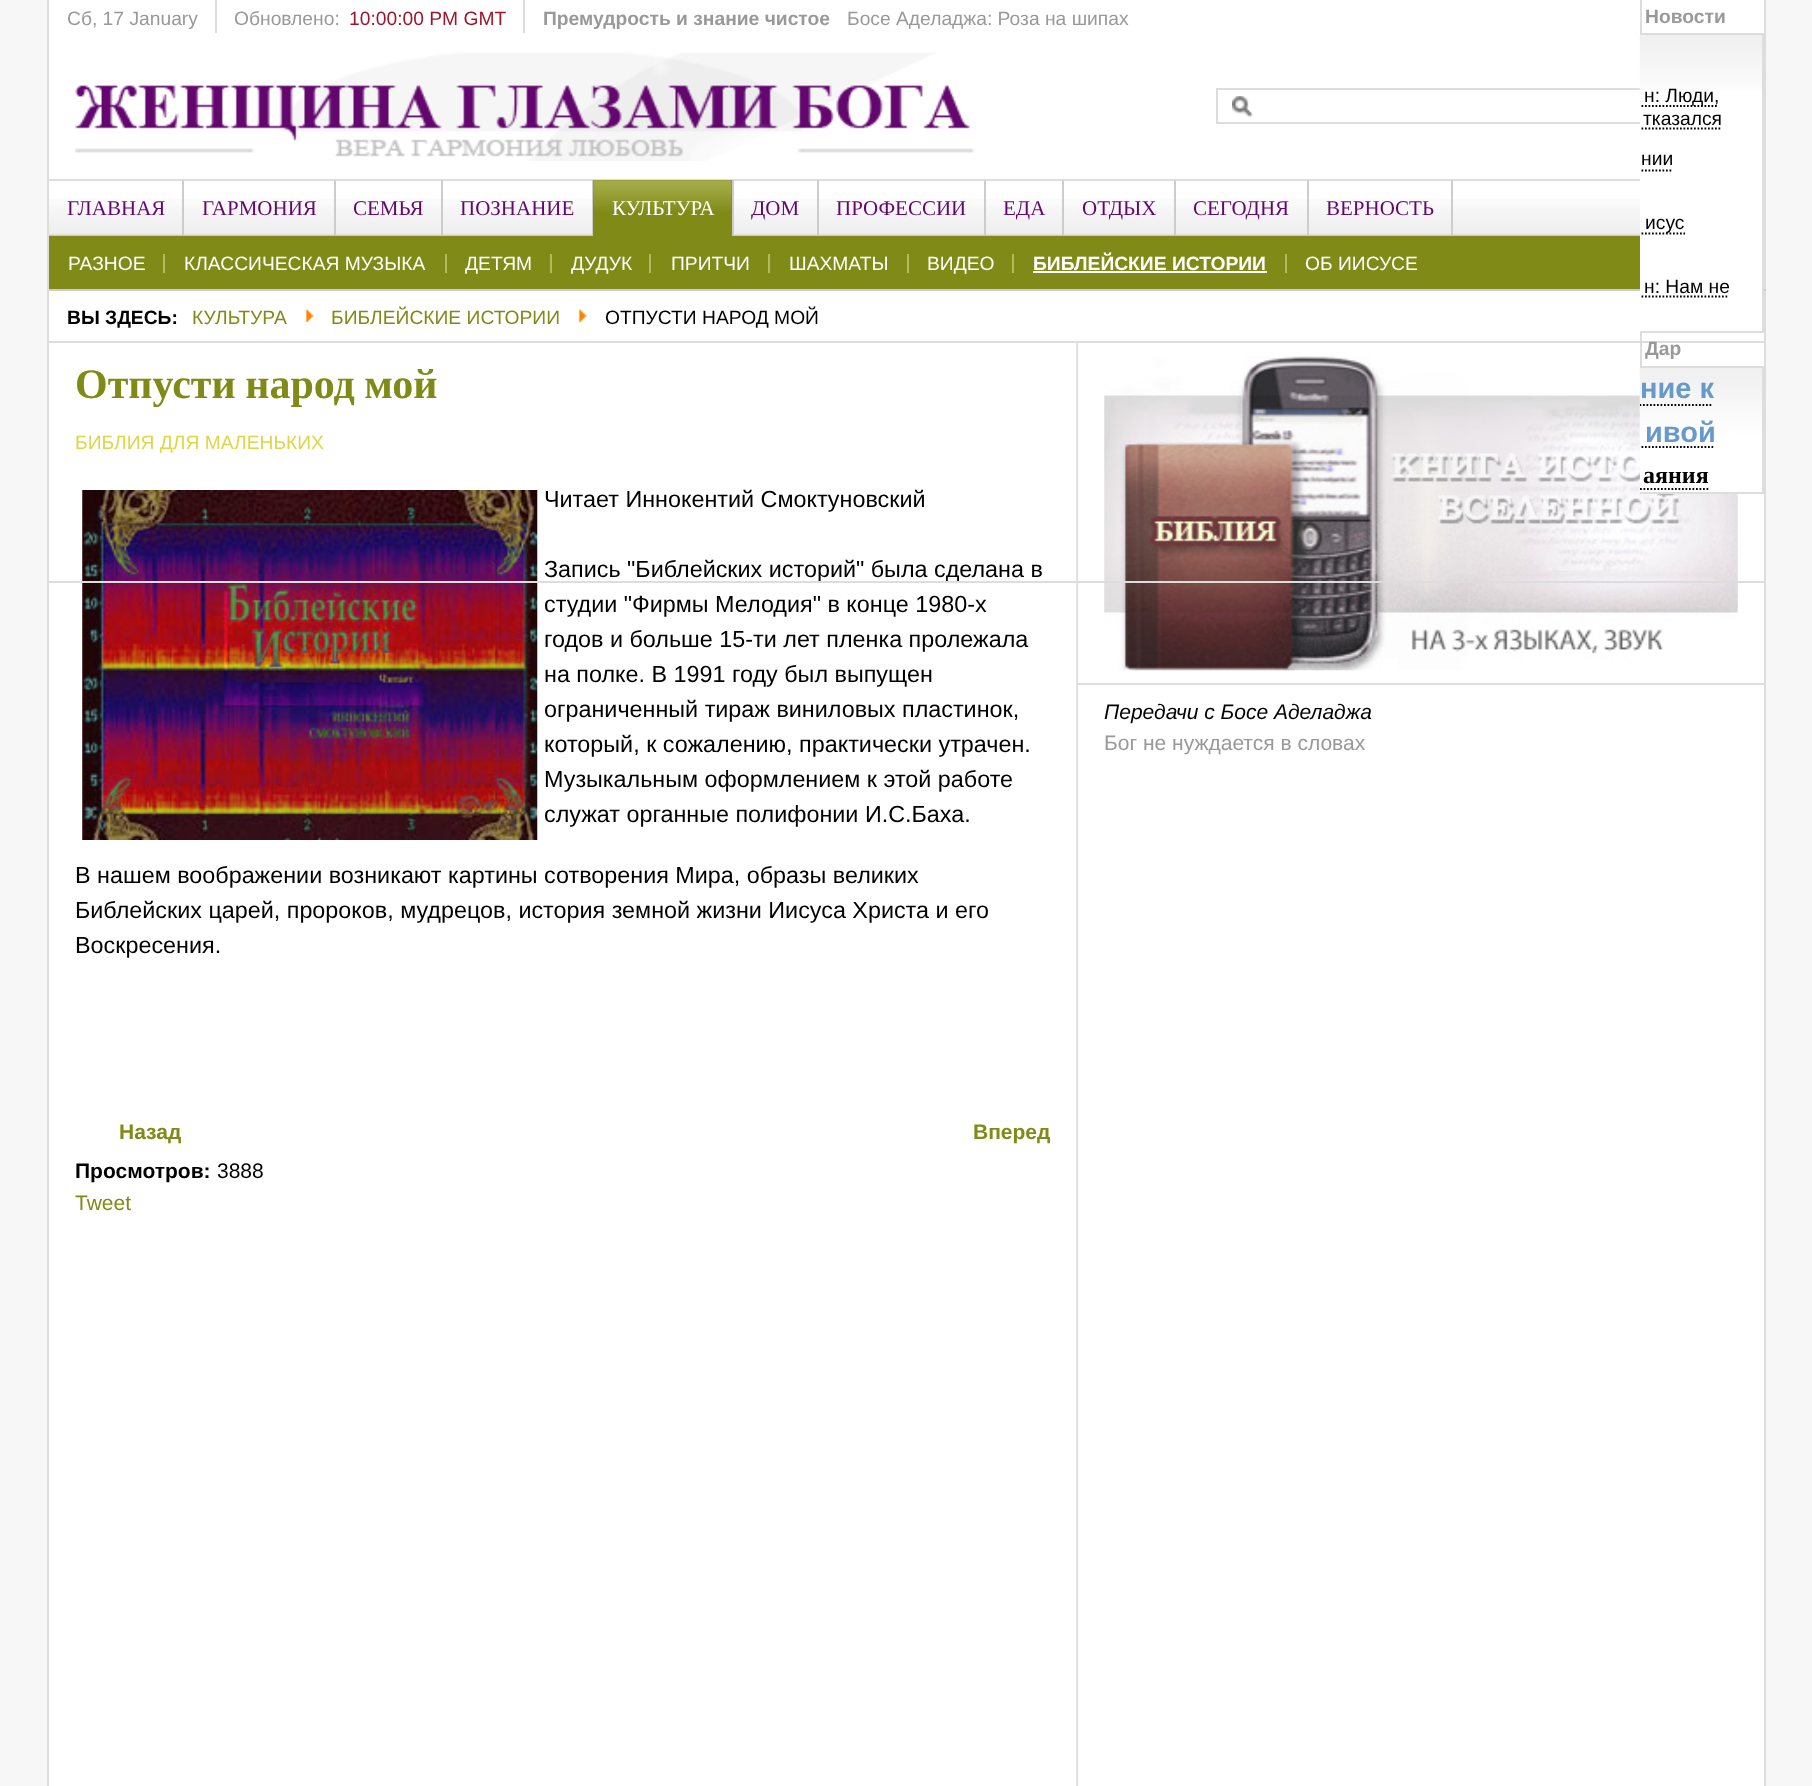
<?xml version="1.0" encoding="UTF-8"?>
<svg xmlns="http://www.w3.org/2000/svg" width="1812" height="1786">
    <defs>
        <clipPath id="clip1"><rect x="1640" y="0" width="124" height="333"/></clipPath>
        <clipPath id="clip2"><rect x="1640" y="75" width="96" height="65"/></clipPath>
        <clipPath id="clip3"><rect x="1640" y="140" width="96" height="40"/></clipPath>
        <clipPath id="clip4"><rect x="1640" y="180" width="96" height="86"/></clipPath>
        <clipPath id="clip5"><rect x="1640" y="266" width="96" height="65"/></clipPath>
        <clipPath id="clip6"><rect x="1640" y="333" width="124" height="161"/></clipPath>
    </defs>
    <rect width="100%" height="100%" fill="#F7F7F7"/>
    <rect x="49" y="0" width="1715" height="179" fill="#FFFFFF"/>
    <rect x="49" y="343" width="1715" height="1443" fill="#FFFFFF"/>
    <image x="1076" y="343" width="2" height="1443" href="img_09.png"/>
    <image x="82" y="490" width="456" height="350" href="img_10.png"/>
    <text x="544" y="577" font-family="Liberation Sans" font-size="23.35" fill="#000000">Запись "Библейских историй" была сделана в</text>
    <image x="1104" y="356" width="634" height="315" href="img_11.png"/>
    <rect x="49" y="581" width="1715" height="2" fill="#DDDDDD"/>
    <rect x="215" y="0" width="2" height="33" fill="#DDDDDD"/>
    <text x="67" y="25" font-family="Liberation Sans" font-size="19.25" fill="#999999">Сб, 17 January</text>
    <rect x="523" y="0" width="2" height="33" fill="#DDDDDD"/>
    <text x="234" y="25" font-family="Liberation Sans" font-size="19.25" fill="#999999">Обновлено:</text>
    <text x="349" y="25" font-family="Liberation Sans" font-size="19.25" fill="#9C162E">10:00:00 PM GMT</text>
    <text x="543" y="25" font-family="Liberation Sans" font-size="19.25" font-weight="700" fill="#999999">Премудрость и знание чистое</text>
    <text x="847" y="25" font-family="Liberation Sans" font-size="19.25" fill="#999999">Босе Аделаджа: Роза на шипах</text>
    <rect x="1640" y="0" width="2" height="33" fill="#DDDDDD"/>
    <text x="1645" y="23" font-family="Liberation Sans" font-size="19.25" font-weight="700" fill="#999999">Новости</text>
    <image x="1232" y="96" width="21" height="22" href="img_04.png"/>
    <rect x="1217" y="89" width="520" height="34" fill="none" stroke="#DDDDDD" stroke-width="2"/>
    <rect x="1764" y="0" width="2" height="291" fill="#DDDDDD"/>
    <rect x="47" y="289" width="1719" height="2" fill="#CCCCCC"/>
    <rect x="1640" y="90" width="122" height="201" fill="#FFFFFF"/>
    <image x="1639" y="35" width="123" height="55" href="img_01.png"/>
    <rect x="49" y="181" width="1591" height="18" fill="#FFFFFF"/>
    <image x="49" y="199" width="1591" height="37" href="img_05.png"/>
    <rect x="47" y="179" width="1593" height="2" fill="#DDDDDD"/>
    <rect x="1451" y="180" width="2" height="56" fill="#CCCCCC"/>
    <rect x="49" y="236" width="1591" height="53" fill="#808A17"/>
    <rect x="49" y="291" width="1715" height="50" fill="#FFFFFF"/>
    <g clip-path="url(#clip1)">
        <rect x="1447" y="34" width="316" height="298" fill="none" stroke="#DDDDDD" stroke-width="2"/>
    </g>
    <g clip-path="url(#clip2)">
        <path d="M 1494.5 106 H 1718.5" fill="none" stroke="#000000" stroke-width="1.8" stroke-dasharray="1.75 1.75"/>
    </g>
    <text x="1644" y="102" font-family="Liberation Sans" font-size="19.25" fill="#000000">н: Люди,</text>
    <text x="1643" y="125" font-family="Liberation Sans" font-size="19.25" fill="#000000">тказался</text>
    <g clip-path="url(#clip2)">
        <path d="M 1494.5 128.5 H 1722" fill="none" stroke="#000000" stroke-width="1.8" stroke-dasharray="1.75 1.75"/>
    </g>
    <text x="1641" y="165" font-family="Liberation Sans" font-size="19.25" fill="#000000">нии</text>
    <g clip-path="url(#clip3)">
        <path d="M 1494.5 170.5 H 1673" fill="none" stroke="#000000" stroke-width="1.8" stroke-dasharray="1.75 1.75"/>
    </g>
    <g clip-path="url(#clip4)">
        <path d="M 1494.5 233.5 H 1685" fill="none" stroke="#000000" stroke-width="1.8" stroke-dasharray="1.75 1.75"/>
    </g>
    <text x="1645" y="229" font-family="Liberation Sans" font-size="19.25" fill="#000000">исус</text>
    <text x="1644" y="293" font-family="Liberation Sans" font-size="19.25" fill="#000000">н: Нам не</text>
    <g clip-path="url(#clip5)">
        <path d="M 1494.5 296.5 H 1729" fill="none" stroke="#000000" stroke-width="1.8" stroke-dasharray="1.75 1.75"/>
    </g>
    <rect x="1764" y="291" width="2" height="1495" fill="#DDDDDD"/>
    <rect x="47" y="341" width="1719" height="2" fill="#DDDDDD"/>
    <rect x="1640" y="333" width="2" height="33" fill="#DDDDDD"/>
    <text x="1645" y="355" font-family="Liberation Sans" font-size="19.25" font-weight="700" fill="#999999">Дар</text>
    <rect x="1640" y="437" width="98" height="55" fill="#FFFFFF"/>
    <image x="1639" y="367" width="123" height="70" href="img_02.png"/>
    <g clip-path="url(#clip6)">
        <rect x="1447" y="367" width="316" height="126" fill="none" stroke="#DDDDDD" stroke-width="2"/>
    </g>
    <text x="1640" y="398" font-family="Liberation Sans" font-size="29" font-weight="700" fill="#6699CC">ние к</text>
    <g clip-path="url(#clip6)">
        <path d="M 1496 405 H 1713" fill="none" stroke="#000000" stroke-width="1.8" stroke-dasharray="1.75 1.75"/>
    </g>
    <text x="1645" y="442" font-family="Liberation Sans" font-size="29" font-weight="700" fill="#6699CC">ивой</text>
    <g clip-path="url(#clip6)">
        <path d="M 1494.5 447 H 1715" fill="none" stroke="#000000" stroke-width="1.8" stroke-dasharray="1.75 1.75"/>
    </g>
    <text x="1643" y="483" word-spacing="-1" font-family="Liberation Serif" font-size="24" font-weight="700" fill="#000000">аяния</text>
    <g clip-path="url(#clip6)">
        <path d="M 1500 489 H 1710" fill="none" stroke="#000000" stroke-width="1.8" stroke-dasharray="1.75 1.75"/>
    </g>
    <image x="75" y="52" width="900" height="109" href="img_03.png"/>
    <rect x="47" y="0" width="2" height="236" fill="#DDDDDD"/>
    <rect x="182" y="180" width="2" height="56" fill="#CCCCCC"/>
    <text x="67" y="215" font-family="Liberation Serif" font-size="21" fill="#63066E">ГЛАВНАЯ</text>
    <rect x="334" y="180" width="2" height="56" fill="#CCCCCC"/>
    <text x="202" y="215" font-family="Liberation Serif" font-size="21" fill="#63066E">ГАРМОНИЯ</text>
    <rect x="441" y="180" width="2" height="56" fill="#CCCCCC"/>
    <text x="353" y="215" font-family="Liberation Serif" font-size="21" fill="#63066E">СЕМЬЯ</text>
    <rect x="592" y="180" width="1" height="56" fill="#CCCCCC"/>
    <text x="460" y="215" font-family="Liberation Serif" font-size="21" fill="#63066E">ПОЗНАНИЕ</text>
    <rect x="732" y="180" width="2" height="56" fill="#CCCCCC"/>
    <rect x="593" y="180" width="139" height="56" fill="#808A17"/>
    <image x="593" y="180" width="139" height="31" href="img_06.png"/>
    <text x="612" y="215" font-family="Liberation Serif" font-size="21" fill="#FFFFFF">КУЛЬТУРА</text>
    <rect x="817" y="180" width="2" height="56" fill="#CCCCCC"/>
    <text x="751" y="215" font-family="Liberation Serif" font-size="21" fill="#63066E">ДОМ</text>
    <rect x="984" y="180" width="2" height="56" fill="#CCCCCC"/>
    <text x="836" y="215" font-family="Liberation Serif" font-size="21" fill="#63066E">ПРОФЕССИИ</text>
    <rect x="1062" y="180" width="2" height="56" fill="#CCCCCC"/>
    <text x="1003" y="215" font-family="Liberation Serif" font-size="21" fill="#63066E">ЕДА</text>
    <rect x="1174" y="180" width="2" height="56" fill="#CCCCCC"/>
    <text x="1082" y="215" font-family="Liberation Serif" font-size="21" fill="#63066E">ОТДЫХ</text>
    <rect x="1307" y="180" width="2" height="56" fill="#CCCCCC"/>
    <text x="1193" y="215" font-family="Liberation Serif" font-size="21" fill="#63066E">СЕГОДНЯ</text>
    <text x="1326" y="215" font-family="Liberation Serif" font-size="21" fill="#63066E">ВЕРНОСТЬ</text>
    <rect x="47" y="236" width="2" height="55" fill="#DDDDDD"/>
    <text x="68" y="270" font-family="Liberation Sans" font-size="19.25" fill="#FFFFFF">РАЗНОЕ</text>
    <rect x="163" y="254" width="2" height="19" fill="#B2BA5F"/>
    <text x="184" y="270" font-family="Liberation Sans" font-size="19.25" fill="#FFFFFF">КЛАССИЧЕСКАЯ МУЗЫКА</text>
    <rect x="445" y="254" width="2" height="19" fill="#B2BA5F"/>
    <text x="465" y="270" font-family="Liberation Sans" font-size="19.25" fill="#FFFFFF">ДЕТЯМ</text>
    <rect x="550" y="254" width="2" height="19" fill="#B2BA5F"/>
    <text x="571" y="270" font-family="Liberation Sans" font-size="19.25" fill="#FFFFFF">ДУДУК</text>
    <rect x="649" y="254" width="2" height="19" fill="#B2BA5F"/>
    <text x="671" y="270" font-family="Liberation Sans" font-size="19.25" fill="#FFFFFF">ПРИТЧИ</text>
    <rect x="768" y="254" width="2" height="19" fill="#B2BA5F"/>
    <text x="789" y="270" font-family="Liberation Sans" font-size="19.25" fill="#FFFFFF">ШАХМАТЫ</text>
    <rect x="907" y="254" width="2" height="19" fill="#B2BA5F"/>
    <text x="927" y="270" font-family="Liberation Sans" font-size="19.25" fill="#FFFFFF">ВИДЕО</text>
    <rect x="1012" y="254" width="2" height="19" fill="#B2BA5F"/>
    <text x="1033" y="270" font-family="Liberation Sans" font-size="19.25" font-weight="700" fill="#FFFFFF">БИБЛЕЙСКИЕ ИСТОРИИ</text>
    <rect x="1033" y="271" width="234" height="2" fill="#FFFFFF"/>
    <rect x="1285" y="254" width="2" height="19" fill="#B2BA5F"/>
    <text x="1305" y="270" font-family="Liberation Sans" font-size="19.25" fill="#FFFFFF">ОБ ИИСУСЕ</text>
    <rect x="47" y="291" width="2" height="1495" fill="#DDDDDD"/>
    <text x="67" y="324" font-family="Liberation Sans" font-size="19.25" font-weight="700" fill="#000000">ВЫ ЗДЕСЬ:</text>
    <text x="192" y="324" font-family="Liberation Sans" font-size="19.25" fill="#808A17">КУЛЬТУРА</text>
    <image x="305" y="309" width="9" height="13" href="img_07.png"/>
    <text x="331" y="324" font-family="Liberation Sans" font-size="19.25" fill="#808A17">БИБЛЕЙСКИЕ ИСТОРИИ</text>
    <image x="578" y="309" width="9" height="13" href="img_08.png"/>
    <text x="605" y="324" font-family="Liberation Sans" font-size="19.25" fill="#000000">ОТПУСТИ НАРОД МОЙ</text>
    <text x="75" y="398" word-spacing="-1" font-family="Liberation Serif" font-size="42" font-weight="700" fill="#808A17">Отпусти народ мой</text>
    <text x="75" y="449" font-family="Liberation Sans" font-size="19.25" fill="#DDD648">БИБЛИЯ ДЛЯ МАЛЕНЬКИХ</text>
    <text x="544" y="507" font-family="Liberation Sans" font-size="23.35" fill="#000000">Читает Иннокентий Смоктуновский</text>
    <text font-family="Liberation Sans" font-size="23.35" fill="#000000">
        <tspan x="544" y="612">студии "Фирмы Мелодия" в конце 1980-х</tspan>
        <tspan x="544" y="647">годов и больше 15-ти лет пленка пролежала</tspan>
        <tspan x="544" y="682">на полке. В 1991 году был выпущен</tspan>
        <tspan x="544" y="717">ограниченный тираж виниловых пластинок,</tspan>
        <tspan x="544" y="752">который, к сожалению, практически утрачен.</tspan>
        <tspan x="544" y="787">Музыкальным оформлением к этой работе</tspan>
        <tspan x="544" y="822">служат органные полифонии И.С.Баха.</tspan>
    </text>
    <text font-family="Liberation Sans" font-size="23.35" fill="#000000">
        <tspan x="75" y="883">В нашем воображении возникают картины сотворения Мира, образы великих</tspan>
        <tspan x="75" y="918">Библейских царей, пророков, мудрецов, история земной жизни Иисуса Христа и его</tspan>
        <tspan x="75" y="953">Воскресения.</tspan>
    </text>
    <text x="119" y="1139" font-family="Liberation Sans" font-size="21" font-weight="700" fill="#808A17">Назад</text>
    <text x="973" y="1139" font-family="Liberation Sans" font-size="21" font-weight="700" fill="#808A17">Вперед</text>
    <text x="75" y="1178" font-family="Liberation Sans" font-size="21" font-weight="700" fill="#000000">Просмотров:</text>
    <text x="217" y="1178" font-family="Liberation Sans" font-size="21" fill="#000000">3888</text>
    <text x="75" y="1210" font-family="Liberation Sans" font-size="21" fill="#808A17">Tweet</text>
    <rect x="1078" y="683" width="686" height="2" fill="#DDDDDD"/>
    <text x="1104" y="719" font-family="Liberation Sans" font-size="21" font-style="italic" fill="#000000">Передачи с Босе Аделаджа</text>
    <text x="1104" y="750" font-family="Liberation Sans" font-size="21" fill="#999999">Бог не нуждается в словах</text>
</svg>
